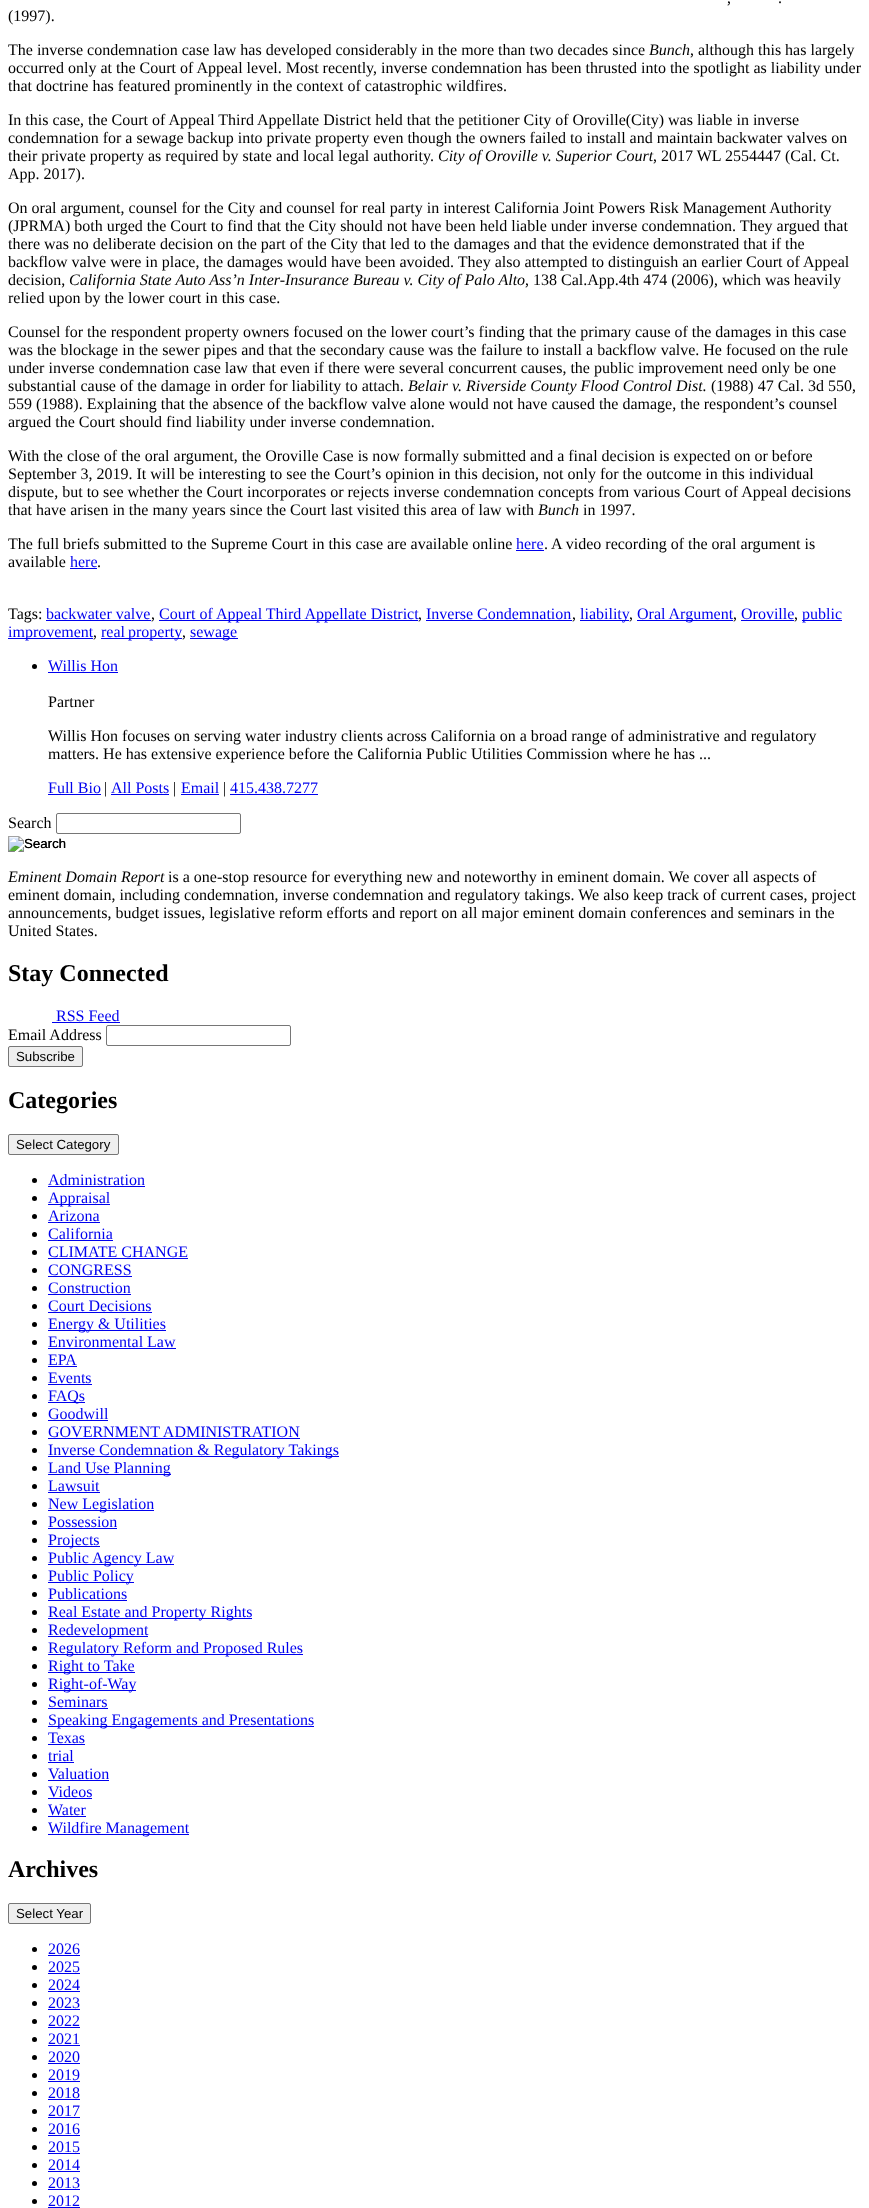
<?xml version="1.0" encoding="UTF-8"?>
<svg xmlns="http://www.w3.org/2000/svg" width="869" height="2208">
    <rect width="100%" height="100%" fill="#FFFFFF"/>
    <text x="727" y="3" font-family="Liberation Serif" font-size="16" fill="#000000">,</text>
    <text x="778" y="3" font-family="Liberation Serif" font-size="16" fill="#000000">.</text>
    <text x="8" y="21" font-family="Liberation Serif" font-size="16" fill="#000000">(1997).</text>
    <text x="8" y="55" font-family="Liberation Serif" font-size="16" fill="#000000">The inverse condemnation case law has developed considerably in the more than two decades since</text>
    <text x="649" y="55" font-family="Liberation Serif" font-size="16" font-style="italic" fill="#000000">Bunch</text>
    <text x="690" y="55" font-family="Liberation Serif" font-size="16" fill="#000000">, although this has largely</text>
    <text font-family="Liberation Serif" font-size="16" fill="#000000">
        <tspan x="8" y="73">occurred only at the Court of Appeal level. Most recently, inverse condemnation has been thrusted into the spotlight as liability under</tspan>
        <tspan x="8" y="91">that doctrine has featured prominently in the context of catastrophic wildfires.</tspan>
    </text>
    <text font-family="Liberation Serif" font-size="16" fill="#000000">
        <tspan x="8" y="125">In this case, the Court of Appeal Third Appellate District held that the petitioner City of Oroville(City) was liable in inverse</tspan>
        <tspan x="8" y="143">condemnation for a sewage backup into private property even though the owners failed to install and maintain backwater valves on</tspan>
        <tspan x="8" y="161">their private property as required by state and local legal authority.</tspan>
    </text>
    <text x="438" y="161" font-family="Liberation Serif" font-size="16" font-style="italic" fill="#000000">City of Oroville v. Superior Court</text>
    <text x="653" y="161" font-family="Liberation Serif" font-size="16" fill="#000000">, 2017 WL 2554447 (Cal. Ct.</text>
    <text x="8" y="179" font-family="Liberation Serif" font-size="16" fill="#000000">App. 2017).</text>
    <text font-family="Liberation Serif" font-size="16" fill="#000000">
        <tspan x="8" y="213">On oral argument, counsel for the City and counsel for real party in interest California Joint Powers Risk Management Authority</tspan>
        <tspan x="8" y="231">(JPRMA) both urged the Court to find that the City should not have been held liable under inverse condemnation. They argued that</tspan>
        <tspan x="8" y="249">there was no deliberate decision on the part of the City that led to the damages and that the evidence demonstrated that if the</tspan>
        <tspan x="8" y="267">backflow valve were in place, the damages would have been avoided. They also attempted to distinguish an earlier Court of Appeal</tspan>
        <tspan x="8" y="285">decision,</tspan>
    </text>
    <text x="69" y="285" font-family="Liberation Serif" font-size="16" font-style="italic" fill="#000000">California State Auto Ass’n Inter-Insurance Bureau v. City of Palo Alto</text>
    <text x="525" y="285" font-family="Liberation Serif" font-size="16" fill="#000000">, 138 Cal.App.4th 474 (2006), which was heavily</text>
    <text x="8" y="303" font-family="Liberation Serif" font-size="16" fill="#000000">relied upon by the lower court in this case.</text>
    <text font-family="Liberation Serif" font-size="16" fill="#000000">
        <tspan x="8" y="337">Counsel for the respondent property owners focused on the lower court’s finding that the primary cause of the damages in this case</tspan>
        <tspan x="8" y="355">was the blockage in the sewer pipes and that the secondary cause was the failure to install a backflow valve. He focused on the rule</tspan>
        <tspan x="8" y="373">under inverse condemnation case law that even if there were several concurrent causes, the public improvement need only be one</tspan>
        <tspan x="8" y="391">substantial cause of the damage in order for liability to attach.</tspan>
    </text>
    <text x="408" y="391" font-family="Liberation Serif" font-size="16" font-style="italic" fill="#000000">Belair v. Riverside County Flood Control Dist.</text>
    <text x="711" y="391" font-family="Liberation Serif" font-size="16" fill="#000000">(1988) 47 Cal. 3d 550,</text>
    <text font-family="Liberation Serif" font-size="16" fill="#000000">
        <tspan x="8" y="409">559 (1988). Explaining that the absence of the backflow valve alone would not have caused the damage, the respondent’s counsel</tspan>
        <tspan x="8" y="427">argued the Court should find liability under inverse condemnation.</tspan>
    </text>
    <text font-family="Liberation Serif" font-size="16" fill="#000000">
        <tspan x="8" y="461">With the close of the oral argument, the Oroville Case is now formally submitted and a final decision is expected on or before</tspan>
        <tspan x="8" y="479">September 3, 2019. It will be interesting to see the Court’s opinion in this decision, not only for the outcome in this individual</tspan>
        <tspan x="8" y="497">dispute, but to see whether the Court incorporates or rejects inverse condemnation concepts from various Court of Appeal decisions</tspan>
        <tspan x="8" y="515">that have arisen in the many years since the Court last visited this area of law with</tspan>
    </text>
    <text x="538" y="515" font-family="Liberation Serif" font-size="16" font-style="italic" fill="#000000">Bunch</text>
    <text x="583" y="515" font-family="Liberation Serif" font-size="16" fill="#000000">in 1997.</text>
    <text x="8" y="549" font-family="Liberation Serif" font-size="16" fill="#000000">The full briefs submitted to the Supreme Court in this case are available online</text>
    <text x="516" y="549" font-family="Liberation Serif" font-size="16" fill="#0000EE">here</text>
    <rect x="516" y="550" width="28" height="1" fill="#0000EE"/>
    <text x="544" y="549" font-family="Liberation Serif" font-size="16" fill="#000000">. A video recording of the oral argument is</text>
    <text x="8" y="567" font-family="Liberation Serif" font-size="16" fill="#000000">available</text>
    <text x="70" y="567" font-family="Liberation Serif" font-size="16" fill="#0000EE">here</text>
    <rect x="70" y="568" width="27" height="1" fill="#0000EE"/>
    <text x="97" y="567" font-family="Liberation Serif" font-size="16" fill="#000000">.</text>
    <text x="8" y="619" font-family="Liberation Serif" font-size="16" fill="#000000">Tags:</text>
    <text x="46" y="619" font-family="Liberation Serif" font-size="16" fill="#0000EE">backwater valve</text>
    <rect x="46" y="620" width="105" height="1" fill="#0000EE"/>
    <text x="151" y="619" font-family="Liberation Serif" font-size="16" fill="#000000">,</text>
    <rect x="159" y="620" width="259" height="1" fill="#0000EE"/>
    <text x="159" y="619" font-family="Liberation Serif" font-size="16" fill="#0000EE">Court of Appeal Third Appellate District</text>
    <text x="418" y="619" font-family="Liberation Serif" font-size="16" fill="#000000">,</text>
    <text x="426" y="619" font-family="Liberation Serif" font-size="16" fill="#0000EE">Inverse Condemnation</text>
    <rect x="426" y="620" width="146" height="1" fill="#0000EE"/>
    <text x="572" y="619" font-family="Liberation Serif" font-size="16" fill="#000000">,</text>
    <rect x="580" y="620" width="49" height="1" fill="#0000EE"/>
    <text x="580" y="619" font-family="Liberation Serif" font-size="16" fill="#0000EE">liability</text>
    <text x="629" y="619" font-family="Liberation Serif" font-size="16" fill="#000000">,</text>
    <rect x="637" y="620" width="96" height="1" fill="#0000EE"/>
    <text x="637" y="619" font-family="Liberation Serif" font-size="16" fill="#0000EE">Oral Argument</text>
    <text x="733" y="619" font-family="Liberation Serif" font-size="16" fill="#000000">,</text>
    <text x="741" y="619" font-family="Liberation Serif" font-size="16" fill="#0000EE">Oroville</text>
    <rect x="741" y="620" width="53" height="1" fill="#0000EE"/>
    <text x="794" y="619" font-family="Liberation Serif" font-size="16" fill="#000000">,</text>
    <rect x="802" y="620" width="40" height="1" fill="#0000EE"/>
    <text x="802" y="619" font-family="Liberation Serif" font-size="16" fill="#0000EE">public</text>
    <rect x="8" y="638" width="85" height="1" fill="#0000EE"/>
    <text x="8" y="637" font-family="Liberation Serif" font-size="16" fill="#0000EE">improvement</text>
    <text x="93" y="637" font-family="Liberation Serif" font-size="16" fill="#000000">,</text>
    <rect x="101" y="638" width="81" height="1" fill="#0000EE"/>
    <text x="101" y="637" word-spacing="-1" font-family="Liberation Serif" font-size="16" fill="#0000EE">real property</text>
    <text x="182" y="637" font-family="Liberation Serif" font-size="16" fill="#000000">,</text>
    <rect x="190" y="638" width="48" height="1" fill="#0000EE"/>
    <text x="190" y="637" font-family="Liberation Serif" font-size="16" fill="#0000EE">sewage</text>
    <circle cx="34.5" cy="666.5" r="2.5" fill="#000000"/>
    <text x="48" y="671" font-family="Liberation Serif" font-size="16" fill="#0000EE">Willis Hon</text>
    <rect x="48" y="672" width="70" height="1" fill="#0000EE"/>
    <text x="48" y="707" font-family="Liberation Serif" font-size="16" fill="#000000">Partner</text>
    <text font-family="Liberation Serif" font-size="16" fill="#000000">
        <tspan x="48" y="741">Willis Hon focuses on serving water industry clients across California on a broad range of administrative and regulatory</tspan>
        <tspan x="48" y="759">matters. He has extensive experience before the California Public Utilities Commission where he has ...</tspan>
    </text>
    <text x="48" y="793" font-family="Liberation Serif" font-size="16" fill="#0000EE">Full Bio</text>
    <rect x="48" y="794" width="53" height="1" fill="#0000EE"/>
    <text x="104" y="793" font-family="Liberation Serif" font-size="16" fill="#000000">|</text>
    <text x="111" y="793" font-family="Liberation Serif" font-size="16" fill="#0000EE">All Posts</text>
    <rect x="111" y="794" width="58" height="1" fill="#0000EE"/>
    <text x="173" y="793" font-family="Liberation Serif" font-size="16" fill="#000000">|</text>
    <text x="181" y="793" font-family="Liberation Serif" font-size="16" fill="#0000EE">Email</text>
    <rect x="181" y="794" width="38" height="1" fill="#0000EE"/>
    <text x="223" y="793" font-family="Liberation Serif" font-size="16" fill="#000000">|</text>
    <text x="230" y="793" font-family="Liberation Serif" font-size="16" fill="#0000EE">415.438.7277</text>
    <rect x="230" y="794" width="88" height="1" fill="#0000EE"/>
    <text x="8" y="828" font-family="Liberation Serif" font-size="16" fill="#000000">Search</text>
    <rect x="56.5" y="813.5" width="184" height="20" rx="1.5" fill="none" stroke="#767676"/>
    <image x="8" y="836" width="58" height="16" href="img_01.png"/>
    <text x="24" y="848" font-family="Liberation Sans" font-size="13.25" fill="#000000">Search</text>
    <text x="8" y="882" font-family="Liberation Serif" font-size="16" font-style="italic" fill="#000000">Eminent Domain Report</text>
    <text x="168" y="882" font-family="Liberation Serif" font-size="16" fill="#000000">is a one-stop resource for everything new and noteworthy in eminent domain. We cover all aspects of</text>
    <text font-family="Liberation Serif" font-size="16" fill="#000000">
        <tspan x="8" y="900">eminent domain, including condemnation, inverse condemnation and regulatory takings. We also keep track of current cases, project</tspan>
        <tspan x="8" y="918">announcements, budget issues, legislative reform efforts and report on all major eminent domain conferences and seminars in the</tspan>
        <tspan x="8" y="936">United States.</tspan>
    </text>
    <text x="8" y="981" font-family="Liberation Serif" font-size="24" font-weight="700" fill="#000000">Stay Connected</text>
    <text x="56" y="1021" font-family="Liberation Serif" font-size="16" fill="#0000EE">RSS Feed</text>
    <rect x="52" y="1022" width="68" height="1" fill="#0000EE"/>
    <text x="8" y="1040" font-family="Liberation Serif" font-size="16" fill="#000000">Email Address</text>
    <rect x="106.5" y="1025.5" width="184" height="20" rx="1.5" fill="none" stroke="#767676"/>
    <rect x="8.5" y="1046.5" width="74" height="20" rx="1.5" fill="#EFEFEF" stroke="#767676"/>
    <text x="16" y="1061" font-family="Liberation Sans" font-size="13.25" fill="#000000">Subscribe</text>
    <text x="8" y="1108" font-family="Liberation Serif" font-size="24" font-weight="700" fill="#000000">Categories</text>
    <rect x="8.5" y="1134.5" width="110" height="20" rx="1.5" fill="#EFEFEF" stroke="#767676"/>
    <text x="16" y="1149" font-family="Liberation Sans" font-size="13.25" fill="#000000">Select Category</text>
    <circle cx="34.5" cy="1180.5" r="2.5" fill="#000000"/>
    <text x="48" y="1185" font-family="Liberation Serif" font-size="16" fill="#0000EE">Administration</text>
    <rect x="48" y="1186" width="97" height="1" fill="#0000EE"/>
    <circle cx="34.5" cy="1198.5" r="2.5" fill="#000000"/>
    <rect x="48" y="1204" width="62" height="1" fill="#0000EE"/>
    <text x="48" y="1203" font-family="Liberation Serif" font-size="16" fill="#0000EE">Appraisal</text>
    <circle cx="34.5" cy="1216.5" r="2.5" fill="#000000"/>
    <text x="48" y="1221" font-family="Liberation Serif" font-size="16" fill="#0000EE">Arizona</text>
    <rect x="48" y="1222" width="52" height="1" fill="#0000EE"/>
    <circle cx="34.5" cy="1234.5" r="2.5" fill="#000000"/>
    <text x="48" y="1239" font-family="Liberation Serif" font-size="16" fill="#0000EE">California</text>
    <rect x="48" y="1240" width="65" height="1" fill="#0000EE"/>
    <circle cx="34.5" cy="1252.5" r="2.5" fill="#000000"/>
    <text x="48" y="1257" font-family="Liberation Serif" font-size="16" fill="#0000EE">CLIMATE CHANGE</text>
    <rect x="48" y="1258" width="140" height="1" fill="#0000EE"/>
    <circle cx="34.5" cy="1270.5" r="2.5" fill="#000000"/>
    <text x="48" y="1275" font-family="Liberation Serif" font-size="16" fill="#0000EE">CONGRESS</text>
    <rect x="48" y="1276" width="84" height="1" fill="#0000EE"/>
    <circle cx="34.5" cy="1288.5" r="2.5" fill="#000000"/>
    <text x="48" y="1293" font-family="Liberation Serif" font-size="16" fill="#0000EE">Construction</text>
    <rect x="48" y="1294" width="83" height="1" fill="#0000EE"/>
    <circle cx="34.5" cy="1306.5" r="2.5" fill="#000000"/>
    <text x="48" y="1311" font-family="Liberation Serif" font-size="16" fill="#0000EE">Court Decisions</text>
    <rect x="48" y="1312" width="104" height="1" fill="#0000EE"/>
    <circle cx="34.5" cy="1324.5" r="2.5" fill="#000000"/>
    <rect x="48" y="1330" width="118" height="1" fill="#0000EE"/>
    <text x="48" y="1329" font-family="Liberation Serif" font-size="16" fill="#0000EE">Energy &amp; Utilities</text>
    <circle cx="34.5" cy="1342.5" r="2.5" fill="#000000"/>
    <text x="48" y="1347" font-family="Liberation Serif" font-size="16" fill="#0000EE">Environmental Law</text>
    <rect x="48" y="1348" width="128" height="1" fill="#0000EE"/>
    <circle cx="34.5" cy="1360.5" r="2.5" fill="#000000"/>
    <text x="48" y="1365" font-family="Liberation Serif" font-size="16" fill="#0000EE">EPA</text>
    <rect x="48" y="1366" width="29" height="1" fill="#0000EE"/>
    <circle cx="34.5" cy="1378.5" r="2.5" fill="#000000"/>
    <text x="48" y="1383" font-family="Liberation Serif" font-size="16" fill="#0000EE">Events</text>
    <rect x="48" y="1384" width="44" height="1" fill="#0000EE"/>
    <circle cx="34.5" cy="1396.5" r="2.5" fill="#000000"/>
    <rect x="48" y="1402" width="37" height="1" fill="#0000EE"/>
    <text x="48" y="1401" font-family="Liberation Serif" font-size="16" fill="#0000EE">FAQs</text>
    <circle cx="34.5" cy="1414.5" r="2.5" fill="#000000"/>
    <text x="48" y="1419" font-family="Liberation Serif" font-size="16" fill="#0000EE">Goodwill</text>
    <rect x="48" y="1420" width="60" height="1" fill="#0000EE"/>
    <circle cx="34.5" cy="1432.5" r="2.5" fill="#000000"/>
    <text x="48" y="1437" font-family="Liberation Serif" font-size="16" fill="#0000EE">GOVERNMENT ADMINISTRATION</text>
    <rect x="48" y="1438" width="252" height="1" fill="#0000EE"/>
    <circle cx="34.5" cy="1450.5" r="2.5" fill="#000000"/>
    <rect x="48" y="1456" width="291" height="1" fill="#0000EE"/>
    <text x="48" y="1455" font-family="Liberation Serif" font-size="16" fill="#0000EE">Inverse Condemnation &amp; Regulatory Takings</text>
    <circle cx="34.5" cy="1468.5" r="2.5" fill="#000000"/>
    <rect x="48" y="1474" width="123" height="1" fill="#0000EE"/>
    <text x="48" y="1473" font-family="Liberation Serif" font-size="16" fill="#0000EE">Land Use Planning</text>
    <circle cx="34.5" cy="1486.5" r="2.5" fill="#000000"/>
    <text x="48" y="1491" font-family="Liberation Serif" font-size="16" fill="#0000EE">Lawsuit</text>
    <rect x="48" y="1492" width="52" height="1" fill="#0000EE"/>
    <circle cx="34.5" cy="1504.5" r="2.5" fill="#000000"/>
    <rect x="48" y="1510" width="106" height="1" fill="#0000EE"/>
    <text x="48" y="1509" font-family="Liberation Serif" font-size="16" fill="#0000EE">New Legislation</text>
    <circle cx="34.5" cy="1522.5" r="2.5" fill="#000000"/>
    <text x="48" y="1527" font-family="Liberation Serif" font-size="16" fill="#0000EE">Possession</text>
    <rect x="48" y="1528" width="69" height="1" fill="#0000EE"/>
    <circle cx="34.5" cy="1540.5" r="2.5" fill="#000000"/>
    <rect x="48" y="1546" width="52" height="1" fill="#0000EE"/>
    <text x="48" y="1545" font-family="Liberation Serif" font-size="16" fill="#0000EE">Projects</text>
    <circle cx="34.5" cy="1558.5" r="2.5" fill="#000000"/>
    <rect x="48" y="1564" width="126" height="1" fill="#0000EE"/>
    <text x="48" y="1563" font-family="Liberation Serif" font-size="16" fill="#0000EE">Public Agency Law</text>
    <circle cx="34.5" cy="1576.5" r="2.5" fill="#000000"/>
    <rect x="48" y="1582" width="86" height="1" fill="#0000EE"/>
    <text x="48" y="1581" font-family="Liberation Serif" font-size="16" fill="#0000EE">Public Policy</text>
    <circle cx="34.5" cy="1594.5" r="2.5" fill="#000000"/>
    <text x="48" y="1599" font-family="Liberation Serif" font-size="16" fill="#0000EE">Publications</text>
    <rect x="48" y="1600" width="79" height="1" fill="#0000EE"/>
    <circle cx="34.5" cy="1612.5" r="2.5" fill="#000000"/>
    <rect x="48" y="1618" width="204" height="1" fill="#0000EE"/>
    <text x="48" y="1617" font-family="Liberation Serif" font-size="16" fill="#0000EE">Real Estate and Property Rights</text>
    <circle cx="34.5" cy="1630.5" r="2.5" fill="#000000"/>
    <rect x="48" y="1636" width="100" height="1" fill="#0000EE"/>
    <text x="48" y="1635" font-family="Liberation Serif" font-size="16" fill="#0000EE">Redevelopment</text>
    <circle cx="34.5" cy="1648.5" r="2.5" fill="#000000"/>
    <rect x="48" y="1654" width="255" height="1" fill="#0000EE"/>
    <text x="48" y="1653" font-family="Liberation Serif" font-size="16" fill="#0000EE">Regulatory Reform and Proposed Rules</text>
    <circle cx="34.5" cy="1666.5" r="2.5" fill="#000000"/>
    <rect x="48" y="1672" width="87" height="1" fill="#0000EE"/>
    <text x="48" y="1671" font-family="Liberation Serif" font-size="16" fill="#0000EE">Right to Take</text>
    <circle cx="34.5" cy="1684.5" r="2.5" fill="#000000"/>
    <rect x="48" y="1690" width="88" height="1" fill="#0000EE"/>
    <text x="48" y="1689" font-family="Liberation Serif" font-size="16" fill="#0000EE">Right-of-Way</text>
    <circle cx="34.5" cy="1702.5" r="2.5" fill="#000000"/>
    <text x="48" y="1707" font-family="Liberation Serif" font-size="16" fill="#0000EE">Seminars</text>
    <rect x="48" y="1708" width="60" height="1" fill="#0000EE"/>
    <circle cx="34.5" cy="1720.5" r="2.5" fill="#000000"/>
    <rect x="48" y="1726" width="266" height="1" fill="#0000EE"/>
    <text x="48" y="1725" font-family="Liberation Serif" font-size="16" fill="#0000EE">Speaking Engagements and Presentations</text>
    <circle cx="34.5" cy="1738.5" r="2.5" fill="#000000"/>
    <text x="48" y="1743" font-family="Liberation Serif" font-size="16" fill="#0000EE">Texas</text>
    <rect x="48" y="1744" width="37" height="1" fill="#0000EE"/>
    <circle cx="34.5" cy="1756.5" r="2.5" fill="#000000"/>
    <text x="48" y="1761" font-family="Liberation Serif" font-size="16" fill="#0000EE">trial</text>
    <rect x="48" y="1762" width="26" height="1" fill="#0000EE"/>
    <circle cx="34.5" cy="1774.5" r="2.5" fill="#000000"/>
    <text x="48" y="1779" font-family="Liberation Serif" font-size="16" fill="#0000EE">Valuation</text>
    <rect x="48" y="1780" width="61" height="1" fill="#0000EE"/>
    <circle cx="34.5" cy="1792.5" r="2.5" fill="#000000"/>
    <text x="48" y="1797" font-family="Liberation Serif" font-size="16" fill="#0000EE">Videos</text>
    <rect x="48" y="1798" width="44" height="1" fill="#0000EE"/>
    <circle cx="34.5" cy="1810.5" r="2.5" fill="#000000"/>
    <text x="48" y="1815" font-family="Liberation Serif" font-size="16" fill="#0000EE">Water</text>
    <rect x="48" y="1816" width="38" height="1" fill="#0000EE"/>
    <circle cx="34.5" cy="1828.5" r="2.5" fill="#000000"/>
    <rect x="48" y="1834" width="141" height="1" fill="#0000EE"/>
    <text x="48" y="1833" font-family="Liberation Serif" font-size="16" fill="#0000EE">Wildfire Management</text>
    <text x="8" y="1877" font-family="Liberation Serif" font-size="24" font-weight="700" fill="#000000">Archives</text>
    <rect x="8.5" y="1903.5" width="82" height="20" rx="1.5" fill="#EFEFEF" stroke="#767676"/>
    <text x="16" y="1918" font-family="Liberation Sans" font-size="13.25" fill="#000000">Select Year</text>
    <circle cx="34.5" cy="1949.5" r="2.5" fill="#000000"/>
    <text x="48" y="1954" font-family="Liberation Serif" font-size="16" fill="#0000EE">2026</text>
    <rect x="48" y="1955" width="32" height="1" fill="#0000EE"/>
    <circle cx="34.5" cy="1967.5" r="2.5" fill="#000000"/>
    <text x="48" y="1972" font-family="Liberation Serif" font-size="16" fill="#0000EE">2025</text>
    <rect x="48" y="1973" width="32" height="1" fill="#0000EE"/>
    <circle cx="34.5" cy="1985.5" r="2.5" fill="#000000"/>
    <text x="48" y="1990" font-family="Liberation Serif" font-size="16" fill="#0000EE">2024</text>
    <rect x="48" y="1991" width="32" height="1" fill="#0000EE"/>
    <circle cx="34.5" cy="2003.5" r="2.5" fill="#000000"/>
    <text x="48" y="2008" font-family="Liberation Serif" font-size="16" fill="#0000EE">2023</text>
    <rect x="48" y="2009" width="32" height="1" fill="#0000EE"/>
    <circle cx="34.5" cy="2021.5" r="2.5" fill="#000000"/>
    <text x="48" y="2026" font-family="Liberation Serif" font-size="16" fill="#0000EE">2022</text>
    <rect x="48" y="2027" width="32" height="1" fill="#0000EE"/>
    <circle cx="34.5" cy="2039.5" r="2.5" fill="#000000"/>
    <text x="48" y="2044" font-family="Liberation Serif" font-size="16" fill="#0000EE">2021</text>
    <rect x="48" y="2045" width="32" height="1" fill="#0000EE"/>
    <circle cx="34.5" cy="2057.5" r="2.5" fill="#000000"/>
    <text x="48" y="2062" font-family="Liberation Serif" font-size="16" fill="#0000EE">2020</text>
    <rect x="48" y="2063" width="32" height="1" fill="#0000EE"/>
    <circle cx="34.5" cy="2075.5" r="2.5" fill="#000000"/>
    <text x="48" y="2080" font-family="Liberation Serif" font-size="16" fill="#0000EE">2019</text>
    <rect x="48" y="2081" width="32" height="1" fill="#0000EE"/>
    <circle cx="34.5" cy="2093.5" r="2.5" fill="#000000"/>
    <text x="48" y="2098" font-family="Liberation Serif" font-size="16" fill="#0000EE">2018</text>
    <rect x="48" y="2099" width="32" height="1" fill="#0000EE"/>
    <circle cx="34.5" cy="2111.5" r="2.5" fill="#000000"/>
    <text x="48" y="2116" font-family="Liberation Serif" font-size="16" fill="#0000EE">2017</text>
    <rect x="48" y="2117" width="32" height="1" fill="#0000EE"/>
    <circle cx="34.5" cy="2129.5" r="2.5" fill="#000000"/>
    <text x="48" y="2134" font-family="Liberation Serif" font-size="16" fill="#0000EE">2016</text>
    <rect x="48" y="2135" width="32" height="1" fill="#0000EE"/>
    <circle cx="34.5" cy="2147.5" r="2.5" fill="#000000"/>
    <text x="48" y="2152" font-family="Liberation Serif" font-size="16" fill="#0000EE">2015</text>
    <rect x="48" y="2153" width="32" height="1" fill="#0000EE"/>
    <circle cx="34.5" cy="2165.5" r="2.5" fill="#000000"/>
    <text x="48" y="2170" font-family="Liberation Serif" font-size="16" fill="#0000EE">2014</text>
    <rect x="48" y="2171" width="32" height="1" fill="#0000EE"/>
    <circle cx="34.5" cy="2183.5" r="2.5" fill="#000000"/>
    <text x="48" y="2188" font-family="Liberation Serif" font-size="16" fill="#0000EE">2013</text>
    <rect x="48" y="2189" width="32" height="1" fill="#0000EE"/>
    <circle cx="34.5" cy="2201.5" r="2.5" fill="#000000"/>
    <text x="48" y="2206" font-family="Liberation Serif" font-size="16" fill="#0000EE">2012</text>
    <rect x="48" y="2207" width="32" height="1" fill="#0000EE"/>
</svg>
